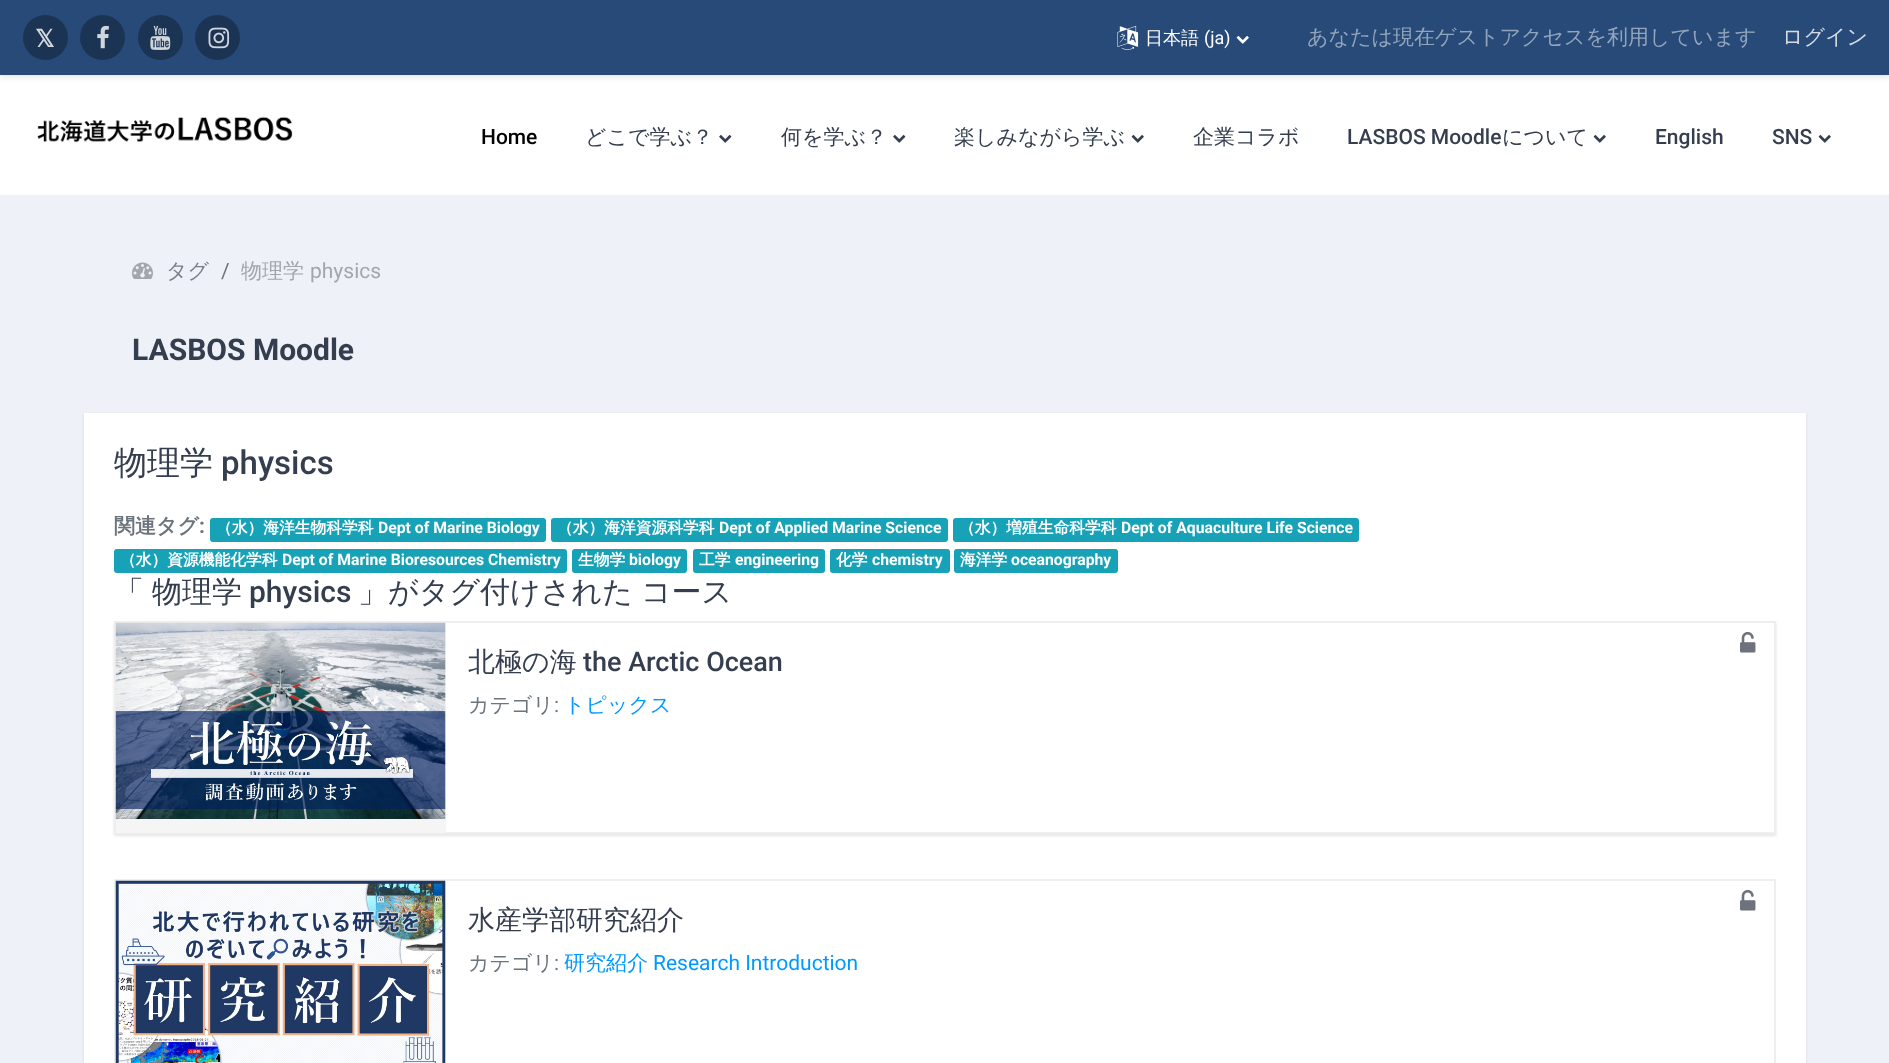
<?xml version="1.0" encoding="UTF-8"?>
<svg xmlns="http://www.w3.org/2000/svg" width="1889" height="1063">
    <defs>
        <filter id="blur1" x="-50%" y="-200%" width="200%" height="500%"><feGaussianBlur stdDeviation="3"/></filter>
        <filter id="blur2" x="-50%" y="-200%" width="200%" height="500%"><feGaussianBlur stdDeviation="1.5"/></filter>
        <clipPath id="clip1"><path d="M 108 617 H 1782 V 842 H 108 Z M 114 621 H 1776 V 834 H 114 Z" clip-rule="evenodd"/></clipPath>
    </defs>
    <rect width="100%" height="100%" fill="#EEF2F8"/>
    <rect x="0" y="75" width="1889" height="120" fill="#FFFFFF"/>
    <rect x="0" y="2" width="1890" height="75" fill="#000000" fill-opacity="0.1" filter="url(#blur1)"/>
    <rect x="0" y="0" width="1889" height="75" fill="#274A78"/>
    <circle cx="45.5" cy="37.5" r="22.5" fill="#1B3454"/>
    <text x="35" y="47" font-family="DejaVu Sans" font-size="24" font-weight="700" fill="#D1D6DD">𝕏</text>
    <circle cx="102.5" cy="37.5" r="22.5" fill="#1B3454"/>
    <image x="97" y="25" width="12" height="24" href="img_01.png"/>
    <circle cx="160.5" cy="37.5" r="22.5" fill="#1B3454"/>
    <image x="150" y="25" width="21" height="25" href="img_02.png"/>
    <circle cx="217.5" cy="37.5" r="22.5" fill="#1B3454"/>
    <image x="208" y="27" width="22" height="22" href="img_03.png"/>
    <image x="1117" y="26" width="22" height="24" href="img_04.png"/>
    <text x="1145" y="44" font-family="WenQuanYi Zen Hei" font-size="18" font-weight="500" fill="#FFFFFF">日本語</text>
    <text x="1204" y="44" font-family="Roboto" font-size="18" fill="#FFFFFF">(ja)</text>
    <image x="1236" y="36" width="13" height="8" href="img_05.png"/>
    <text x="1307" y="44" font-family="WenQuanYi Zen Hei" font-size="21" font-weight="500" fill="#93A5BC">あなたは現在ゲストアクセスを利用しています</text>
    <text x="1782" y="44" font-family="WenQuanYi Zen Hei" font-size="21" font-weight="500" fill="#D4DBE4">ログイン</text>
    <image x="37" y="116" width="256" height="27" href="img_06.png"/>
    <text x="481" y="144" font-family="Roboto" font-size="21" font-weight="500" fill="#000000">Home</text>
    <text x="585" y="144" font-family="WenQuanYi Zen Hei" font-size="21" font-weight="500" fill="#353E4E">どこで学ぶ？</text>
    <image x="719" y="135" width="13" height="8" href="img_07.png"/>
    <text x="781" y="144" font-family="WenQuanYi Zen Hei" font-size="21" font-weight="500" fill="#353E4E">何を学ぶ？</text>
    <image x="893" y="135" width="13" height="8" href="img_07.png"/>
    <text x="954" y="144" font-family="WenQuanYi Zen Hei" font-size="21" font-weight="500" fill="#353E4E">楽しみながら学ぶ</text>
    <image x="1131" y="135" width="13" height="8" href="img_08.png"/>
    <text x="1193" y="144" font-family="WenQuanYi Zen Hei" font-size="21" font-weight="500" fill="#353E4E">企業コラボ</text>
    <text x="1347" y="144" font-family="Roboto" font-size="21" font-weight="500" fill="#353E4E">LASBOS Moodle</text>
    <text x="1502" y="144" font-family="WenQuanYi Zen Hei" font-size="21" font-weight="500" fill="#353E4E">について</text>
    <image x="1593" y="135" width="13" height="8" href="img_08.png"/>
    <text x="1655" y="144" font-family="Roboto" font-size="21" font-weight="500" fill="#353E4E">English</text>
    <text x="1772" y="144" font-family="Roboto" font-size="21" font-weight="500" fill="#353E4E">SNS</text>
    <image x="1818" y="135" width="13" height="8" href="img_08.png"/>
    <image x="132" y="262" width="21" height="17" href="img_09.png"/>
    <text x="166" y="278" font-family="WenQuanYi Zen Hei" font-size="21" font-weight="500" fill="#797F89">タグ</text>
    <text x="221" y="278" font-family="Roboto" font-size="21" fill="#6C757D">/</text>
    <text x="241" y="278" font-family="WenQuanYi Zen Hei" font-size="21" font-weight="500" fill="#A2A6AD">物理学</text>
    <text x="310" y="278" font-family="Roboto" font-size="21" fill="#A2A6AD">physics</text>
    <text x="132" y="360" font-family="Roboto" font-size="30" font-weight="700" fill="#353E4E">LASBOS Moodle</text>
    <rect x="84" y="414" width="1722" height="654" fill="#000000" fill-opacity="0.1" filter="url(#blur2)"/>
    <rect x="84" y="413" width="1722" height="650" fill="#FFFFFF"/>
    <text x="114" y="474" font-family="WenQuanYi Zen Hei" font-size="33" font-weight="500" fill="#353E4E">物理学</text>
    <text x="221" y="474" font-family="Roboto" font-size="33" font-weight="500" fill="#353E4E">physics</text>
    <text x="114" y="533" font-family="WenQuanYi Zen Hei" font-size="21" font-weight="700" fill="#6C757D">関連タグ</text>
    <rect x="210" y="518" width="336" height="24" rx="3" fill="#17A2B8"/>
    <text x="216" y="533" font-family="WenQuanYi Zen Hei" font-size="15.75" font-weight="700" fill="#FFFFFF">（水）海洋生物科学科</text>
    <text x="378" y="533" font-family="Roboto" font-size="15.75" font-weight="700" fill="#FFFFFF">Dept of Marine Biology</text>
    <rect x="551" y="518" width="397" height="24" rx="3" fill="#17A2B8"/>
    <text x="557" y="533" font-family="WenQuanYi Zen Hei" font-size="15.75" font-weight="700" fill="#FFFFFF">（水）海洋資源科学科</text>
    <text x="719" y="533" font-family="Roboto" font-size="15.75" font-weight="700" fill="#FFFFFF">Dept of Applied Marine Science</text>
    <rect x="953" y="518" width="406" height="24" rx="3" fill="#17A2B8"/>
    <text x="959" y="533" font-family="WenQuanYi Zen Hei" font-size="15.75" font-weight="700" fill="#FFFFFF">（水）増殖生命科学科</text>
    <text x="1121" y="533" font-family="Roboto" font-size="15.75" font-weight="700" fill="#FFFFFF">Dept of Aquaculture Life Science</text>
    <rect x="114" y="549" width="453" height="24" rx="3" fill="#17A2B8"/>
    <text x="120" y="565" font-family="WenQuanYi Zen Hei" font-size="15.75" font-weight="700" fill="#FFFFFF">（水）資源機能化学科</text>
    <text x="282" y="565" font-family="Roboto" font-size="15.75" font-weight="700" fill="#FFFFFF">Dept of Marine Bioresources Chemistry</text>
    <rect x="572" y="549" width="115" height="24" rx="3" fill="#17A2B8"/>
    <text x="578" y="565" font-family="WenQuanYi Zen Hei" font-size="15.75" font-weight="700" fill="#FFFFFF">生物学</text>
    <text x="629" y="565" font-family="Roboto" font-size="15.75" font-weight="700" fill="#FFFFFF">biology</text>
    <rect x="693" y="549" width="132" height="24" rx="3" fill="#17A2B8"/>
    <text x="699" y="565" font-family="WenQuanYi Zen Hei" font-size="15.75" font-weight="700" fill="#FFFFFF">工学</text>
    <text x="735" y="565" font-family="Roboto" font-size="15.75" font-weight="700" fill="#FFFFFF">engineering</text>
    <rect x="830" y="549" width="120" height="24" rx="3" fill="#17A2B8"/>
    <text x="836" y="565" font-family="WenQuanYi Zen Hei" font-size="15.75" font-weight="700" fill="#FFFFFF">化学</text>
    <text x="872" y="565" font-family="Roboto" font-size="15.75" font-weight="700" fill="#FFFFFF">chemistry</text>
    <rect x="954" y="549" width="164" height="24" rx="3" fill="#17A2B8"/>
    <text x="960" y="565" font-family="WenQuanYi Zen Hei" font-size="15.75" font-weight="700" fill="#FFFFFF">海洋学</text>
    <text x="1011" y="565" font-family="Roboto" font-size="15.75" font-weight="700" fill="#FFFFFF">oceanography</text>
    <text x="199" y="533" font-family="Roboto" font-size="21" font-weight="700" fill="#6C757D">:</text>
    <text x="114" y="602" word-spacing="-1" font-family="WenQuanYi Zen Hei" font-size="30" font-weight="500" fill="#353E4E">「 物理学</text>
    <text x="249" y="602" font-family="Roboto" font-size="30" font-weight="500" fill="#353E4E">physics</text>
    <text x="358" y="602" word-spacing="-1" font-family="WenQuanYi Zen Hei" font-size="30" font-weight="500" fill="#353E4E">」がタグ付けされた コース</text>
    <g clip-path="url(#clip1)">
        <rect x="114" y="623" width="1662" height="213" fill="#000000" fill-opacity="0.1" filter="url(#blur2)"/>
    </g>
    <rect x="115" y="622" width="1660" height="211" fill="none" stroke="#EEEEEE" stroke-width="2"/>
    <rect x="116" y="623" width="330" height="210" fill="#F5F5F5"/>
    <image x="115" y="622" width="331" height="197" href="img_10.png"/>
    <image x="1740" y="631" width="16" height="22" href="img_11.png"/>
    <text x="468" y="671" font-family="WenQuanYi Zen Hei" font-size="27" font-weight="500" fill="#353E4E">北極の海</text>
    <text x="583" y="671" font-family="Roboto" font-size="27" font-weight="500" fill="#353E4E">the Arctic Ocean</text>
    <text x="468" y="712" font-family="WenQuanYi Zen Hei" font-size="21" font-weight="500" fill="#6C757D">カテゴリ</text>
    <text x="554" y="712" font-family="Roboto" font-size="21" fill="#6C757D">:</text>
    <text x="564" y="712" font-family="WenQuanYi Zen Hei" font-size="21" font-weight="500" fill="#0099FF">トピックス</text>
    <rect x="115" y="880" width="1660" height="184" fill="none" stroke="#EEEEEE" stroke-width="2"/>
    <rect x="445" y="881" width="1" height="182" fill="#F5F5F5"/>
    <image x="115" y="880" width="331" height="183" href="img_12.png"/>
    <image x="1740" y="889" width="16" height="22" href="img_11.png"/>
    <text x="468" y="929" font-family="WenQuanYi Zen Hei" font-size="27" font-weight="500" fill="#353E4E">水産学部研究紹介</text>
    <text x="468" y="970" font-family="WenQuanYi Zen Hei" font-size="21" font-weight="500" fill="#6C757D">カテゴリ</text>
    <text x="554" y="970" font-family="Roboto" font-size="21" fill="#6C757D">:</text>
    <text x="564" y="970" font-family="WenQuanYi Zen Hei" font-size="21" font-weight="500" fill="#0099FF">研究紹介</text>
    <text x="653" y="970" font-family="Roboto" font-size="21" fill="#0099FF">Research Introduction</text>
</svg>
